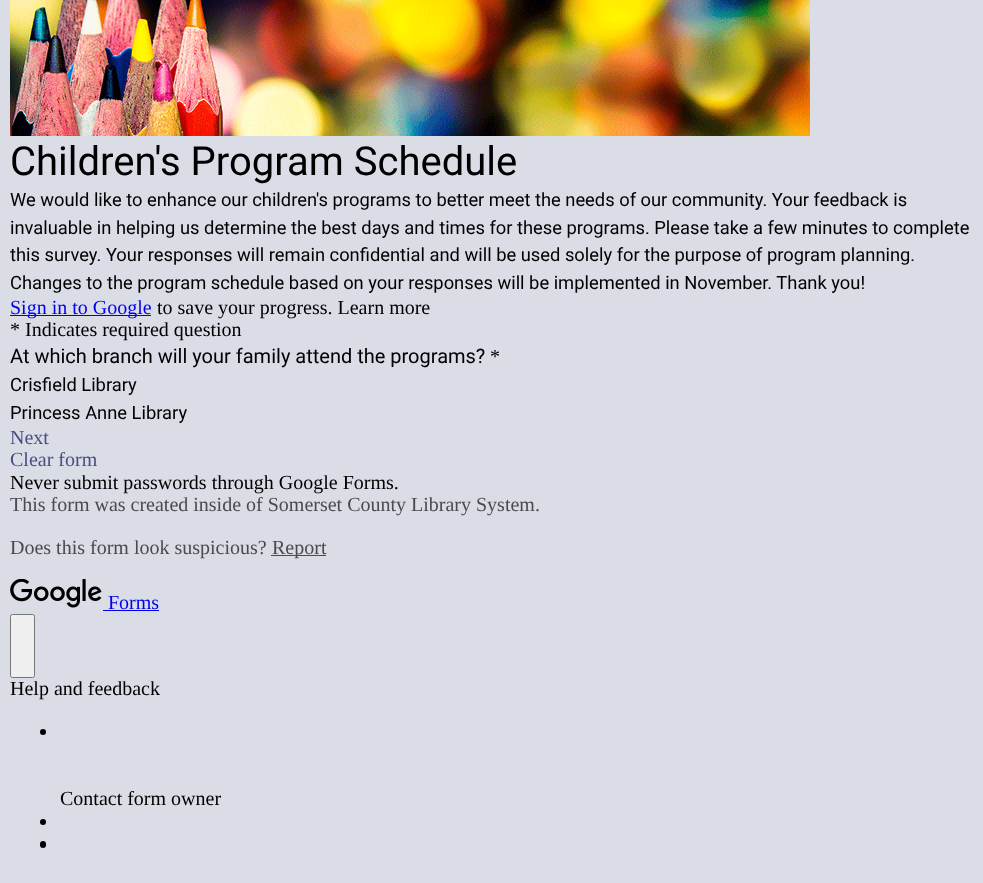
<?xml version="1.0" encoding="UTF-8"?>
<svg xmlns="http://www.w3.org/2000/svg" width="983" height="883">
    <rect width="100%" height="100%" fill="#DADCE6"/>
    <image x="10" y="0" width="800" height="136" href="img_01.png"/>
    <text x="10" y="175" font-family="Roboto" font-size="40" fill="#000000">Children's Program Schedule</text>
    <text font-family="Roboto" font-size="18.33" fill="#000000">
        <tspan x="10" y="206">We would like to enhance our children's programs to better meet the needs of our community. Your feedback is</tspan>
        <tspan x="10" y="234">invaluable in helping us determine the best days and times for these programs. Please take a few minutes to complete</tspan>
        <tspan x="10" y="261">this survey. Your responses will remain confidential and will be used solely for the purpose of program planning.</tspan>
        <tspan x="10" y="289">Changes to the program schedule based on your responses will be implemented in November. Thank you!</tspan>
    </text>
    <rect x="10" y="315" width="141" height="1" fill="#0000EE"/>
    <text x="10" y="314" font-family="Liberation Serif" font-size="20" fill="#0000EE">Sign in to Google</text>
    <text x="157" y="314" font-family="Liberation Serif" font-size="20" fill="#000000">to save your progress. Learn more</text>
    <text x="10" y="336" font-family="Liberation Serif" font-size="20" fill="#000000">* Indicates required question</text>
    <text x="10" y="363" font-family="Roboto" font-size="20" fill="#000000">At which branch will your family attend the programs?</text>
    <text x="490" y="363" font-family="Liberation Serif" font-size="20" fill="#000000">*</text>
    <text font-family="Roboto" font-size="18.33" fill="#000000">
        <tspan x="10" y="391">Crisfield Library</tspan>
        <tspan x="10" y="419">Princess Anne Library</tspan>
    </text>
    <text font-family="Liberation Serif" font-size="20" fill="#484F80">
        <tspan x="10" y="444">Next</tspan>
        <tspan x="10" y="466">Clear form</tspan>
    </text>
    <text x="10" y="489" font-family="Liberation Serif" font-size="20" fill="#000000">Never submit passwords through Google Forms.</text>
    <text x="10" y="511" font-family="Liberation Serif" font-size="20" fill="#4A4B4E">This form was created inside of Somerset County Library System.</text>
    <text x="10" y="554" font-family="Liberation Serif" font-size="20" fill="#4A4B4E">Does this form look suspicious?</text>
    <rect x="271" y="555" width="55" height="1" fill="#4A4B4E"/>
    <text x="272" y="554" font-family="Liberation Serif" font-size="20" fill="#4A4B4E">Report</text>
    <image x="10" y="579" width="92" height="29" href="img_02.png"/>
    <text x="108" y="609" font-family="Liberation Serif" font-size="20" fill="#0000EE">Forms</text>
    <rect x="103" y="610" width="56" height="1" fill="#0000EE"/>
    <rect x="10.5" y="614.5" width="24" height="63" rx="2" fill="#EFEFEF" stroke="#767676"/>
    <text x="10" y="695" font-family="Liberation Serif" font-size="20" fill="#000000">Help and feedback</text>
    <circle cx="43" cy="732" r="3" fill="#000000"/>
    <text x="60" y="805" font-family="Liberation Serif" font-size="20" fill="#000000">Contact form owner</text>
    <circle cx="43" cy="822" r="3" fill="#000000"/>
    <rect x="40" y="841" width="6" height="7" rx="3" fill="#000000"/>
</svg>
